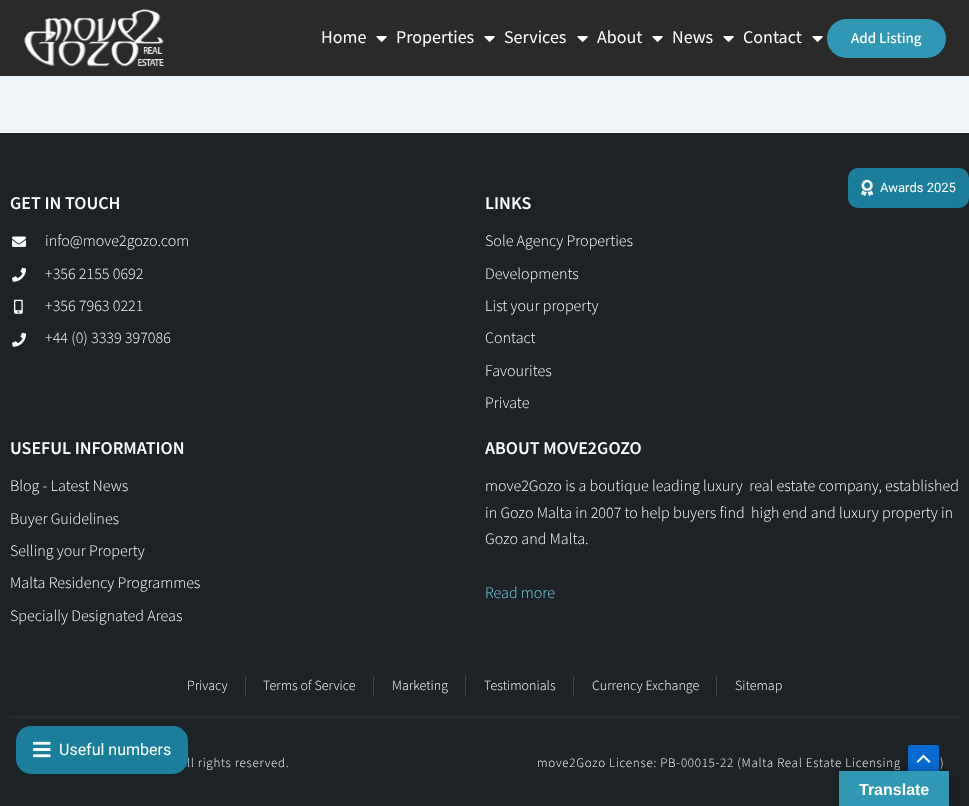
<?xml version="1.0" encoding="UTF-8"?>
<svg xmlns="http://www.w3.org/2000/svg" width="969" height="806">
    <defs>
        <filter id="blur1" x="-50%" y="-200%" width="200%" height="500%"><feGaussianBlur stdDeviation="4.5"/></filter>
    </defs>
    <rect width="100%" height="100%" fill="#F0F5FA"/>
    <rect x="0" y="0" width="969" height="76" fill="#2B2A2A"/>
    <image x="24" y="9" width="141" height="58" href="img_01.png"/>
    <text x="321" y="43" font-family="Mada" font-size="18" fill="#FFFFFF">Home</text>
    <image x="376" y="36" width="11" height="6" href="img_02.png"/>
    <text x="396" y="43" font-family="Mada" font-size="18" fill="#FFFFFF">Properties</text>
    <image x="484" y="36" width="11" height="6" href="img_02.png"/>
    <text x="504" y="43" font-family="Mada" font-size="18" fill="#FFFFFF">Services</text>
    <image x="577" y="36" width="11" height="6" href="img_02.png"/>
    <text x="597" y="43" font-family="Mada" font-size="18" fill="#FFFFFF">About</text>
    <image x="652" y="36" width="11" height="6" href="img_02.png"/>
    <text x="672" y="43" font-family="Mada" font-size="18" fill="#FFFFFF">News</text>
    <image x="723" y="36" width="11" height="6" href="img_02.png"/>
    <text x="743" y="43" font-family="Mada" font-size="18" fill="#FFFFFF">Contact</text>
    <image x="812" y="36" width="11" height="6" href="img_02.png"/>
    <rect x="827" y="19" width="119" height="39" rx="19.5" fill="#3097B5"/>
    <text x="851" y="43" font-family="Mada" font-size="15" font-weight="500" fill="#FFFFFF">Add Listing</text>
    <rect x="0" y="133" width="969" height="673" fill="#1D2226"/>
    <text x="10" y="209" font-family="Mada" font-size="18" font-weight="600" fill="#FFFFFF">GET IN TOUCH</text>
    <image x="12" y="236" width="14" height="11" href="img_03.png"/>
    <text x="45" y="246" font-family="Mada" font-size="16" font-weight="300" fill="#FFFFFF">info@move2gozo.com</text>
    <image x="12" y="267" width="14" height="15" href="img_04.png"/>
    <text x="45" y="279" font-family="Mada" font-size="16" font-weight="300" fill="#FFFFFF">+356 2155 0692</text>
    <image x="14" y="299" width="9" height="15" href="img_05.png"/>
    <text x="45" y="311" font-family="Mada" font-size="16" font-weight="300" fill="#FFFFFF">+356 7963 0221</text>
    <image x="12" y="332" width="14" height="15" href="img_04.png"/>
    <text x="45" y="343" font-family="Mada" font-size="16" font-weight="300" fill="#FFFFFF">+44 (0) 3339 397086</text>
    <text x="485" y="209" font-family="Mada" font-size="18" font-weight="600" fill="#FFFFFF">LINKS</text>
    <text x="485" y="246" font-family="Mada" font-size="16" font-weight="300" fill="#FFFFFF">Sole Agency Properties</text>
    <text x="485" y="279" font-family="Mada" font-size="16" font-weight="300" fill="#FFFFFF">Developments</text>
    <text x="485" y="311" font-family="Mada" font-size="16" font-weight="300" fill="#FFFFFF">List your property</text>
    <text x="485" y="343" font-family="Mada" font-size="16" font-weight="300" fill="#FFFFFF">Contact</text>
    <text x="485" y="376" font-family="Mada" font-size="16" font-weight="300" fill="#FFFFFF">Favourites</text>
    <text x="485" y="408" font-family="Mada" font-size="16" font-weight="300" fill="#FFFFFF">Private</text>
    <text x="10" y="454" font-family="Mada" font-size="18" font-weight="600" fill="#FFFFFF">USEFUL INFORMATION</text>
    <text x="10" y="491" font-family="Mada" font-size="16" font-weight="300" fill="#FFFFFF">Blog - Latest News</text>
    <text x="10" y="524" font-family="Mada" font-size="16" font-weight="300" fill="#FFFFFF">Buyer Guidelines</text>
    <text x="10" y="556" font-family="Mada" font-size="16" font-weight="300" fill="#FFFFFF">Selling your Property</text>
    <text x="10" y="588" font-family="Mada" font-size="16" font-weight="300" fill="#FFFFFF">Malta Residency Programmes</text>
    <text x="10" y="621" font-family="Mada" font-size="16" font-weight="300" fill="#FFFFFF">Specially Designated Areas</text>
    <text x="485" y="454" font-family="Mada" font-size="18" font-weight="600" fill="#FFFFFF">ABOUT MOVE2GOZO</text>
    <text font-family="Mada" font-size="16" font-weight="300" fill="#FFFFFF" xml:space="preserve"><tspan x="485" y="491">move2Gozo is a boutique leading luxury  real estate company, established</tspan><tspan x="485" y="518">in Gozo Malta in 2007 to help buyers find  high end and luxury property in</tspan><tspan x="485" y="544">Gozo and Malta.</tspan></text>
    <text x="485" y="598" font-family="Mada" font-size="16" font-weight="300" fill="#75D7EF">Read more</text>
    <text x="187" y="690" font-family="Mada" font-size="14" font-weight="300" fill="#FFFFFF">Privacy</text>
    <rect x="245" y="676" width="1" height="20" fill="#39434A"/>
    <text x="263" y="690" font-family="Mada" font-size="14" font-weight="300" fill="#FFFFFF">Terms of Service</text>
    <rect x="373" y="676" width="1" height="20" fill="#39434A"/>
    <text x="392" y="690" font-family="Mada" font-size="14" font-weight="300" fill="#FFFFFF">Marketing</text>
    <rect x="465" y="676" width="1" height="20" fill="#39434A"/>
    <text x="484" y="690" font-family="Mada" font-size="14" font-weight="300" fill="#FFFFFF">Testimonials</text>
    <rect x="573" y="676" width="1" height="20" fill="#39434A"/>
    <text x="592" y="690" font-family="Mada" font-size="14" font-weight="300" fill="#FFFFFF">Currency Exchange</text>
    <rect x="716" y="676" width="1" height="20" fill="#39434A"/>
    <text x="735" y="690" font-family="Mada" font-size="14" font-weight="300" fill="#FFFFFF">Sitemap</text>
    <rect x="10" y="716" width="949" height="2" fill="#252C31"/>
    <text x="187" y="767" font-family="Mada" font-size="13" font-weight="300" letter-spacing="0.7" fill="#FFFFFF">ll rights reserved.</text>
    <text x="537" y="767" font-family="Mada" font-size="13" font-weight="300" letter-spacing="0.7" fill="#FFFFFF">move2Gozo License: PB-00015-22 (Malta Real Estate Licensing</text>
    <text x="940" y="767" font-family="Mada" font-size="13" font-weight="300" letter-spacing="0.7" fill="#FFFFFF">)</text>
    <rect x="848" y="168" width="121" height="40" rx="10" fill="#1B7F9C"/>
    <image x="861" y="179" width="13" height="17" href="img_06.png"/>
    <text x="880" y="192" font-family="Roboto" font-size="13" fill="#FFFFFF">Awards 2025</text>
    <rect x="16" y="726" width="172" height="48" rx="15" fill="#1B7F9C"/>
    <image x="33" y="741" width="18" height="17" href="img_07.png"/>
    <text x="59" y="755" font-family="Roboto" font-size="16" fill="#FFFFFF">Useful numbers</text>
    <rect x="908" y="745" width="31" height="31" rx="2" fill="#046BD2"/>
    <image x="916" y="754" width="15" height="9" href="img_08.png"/>
    <rect x="839" y="771" width="110" height="35" fill="#000000" fill-opacity="0.3" filter="url(#blur1)"/>
    <rect x="839" y="771" width="110" height="35" fill="#3097B5"/>
    <text x="859" y="795" font-family="Liberation Sans" font-size="16" font-weight="700" fill="#FFFFFF">Translate</text>
</svg>
